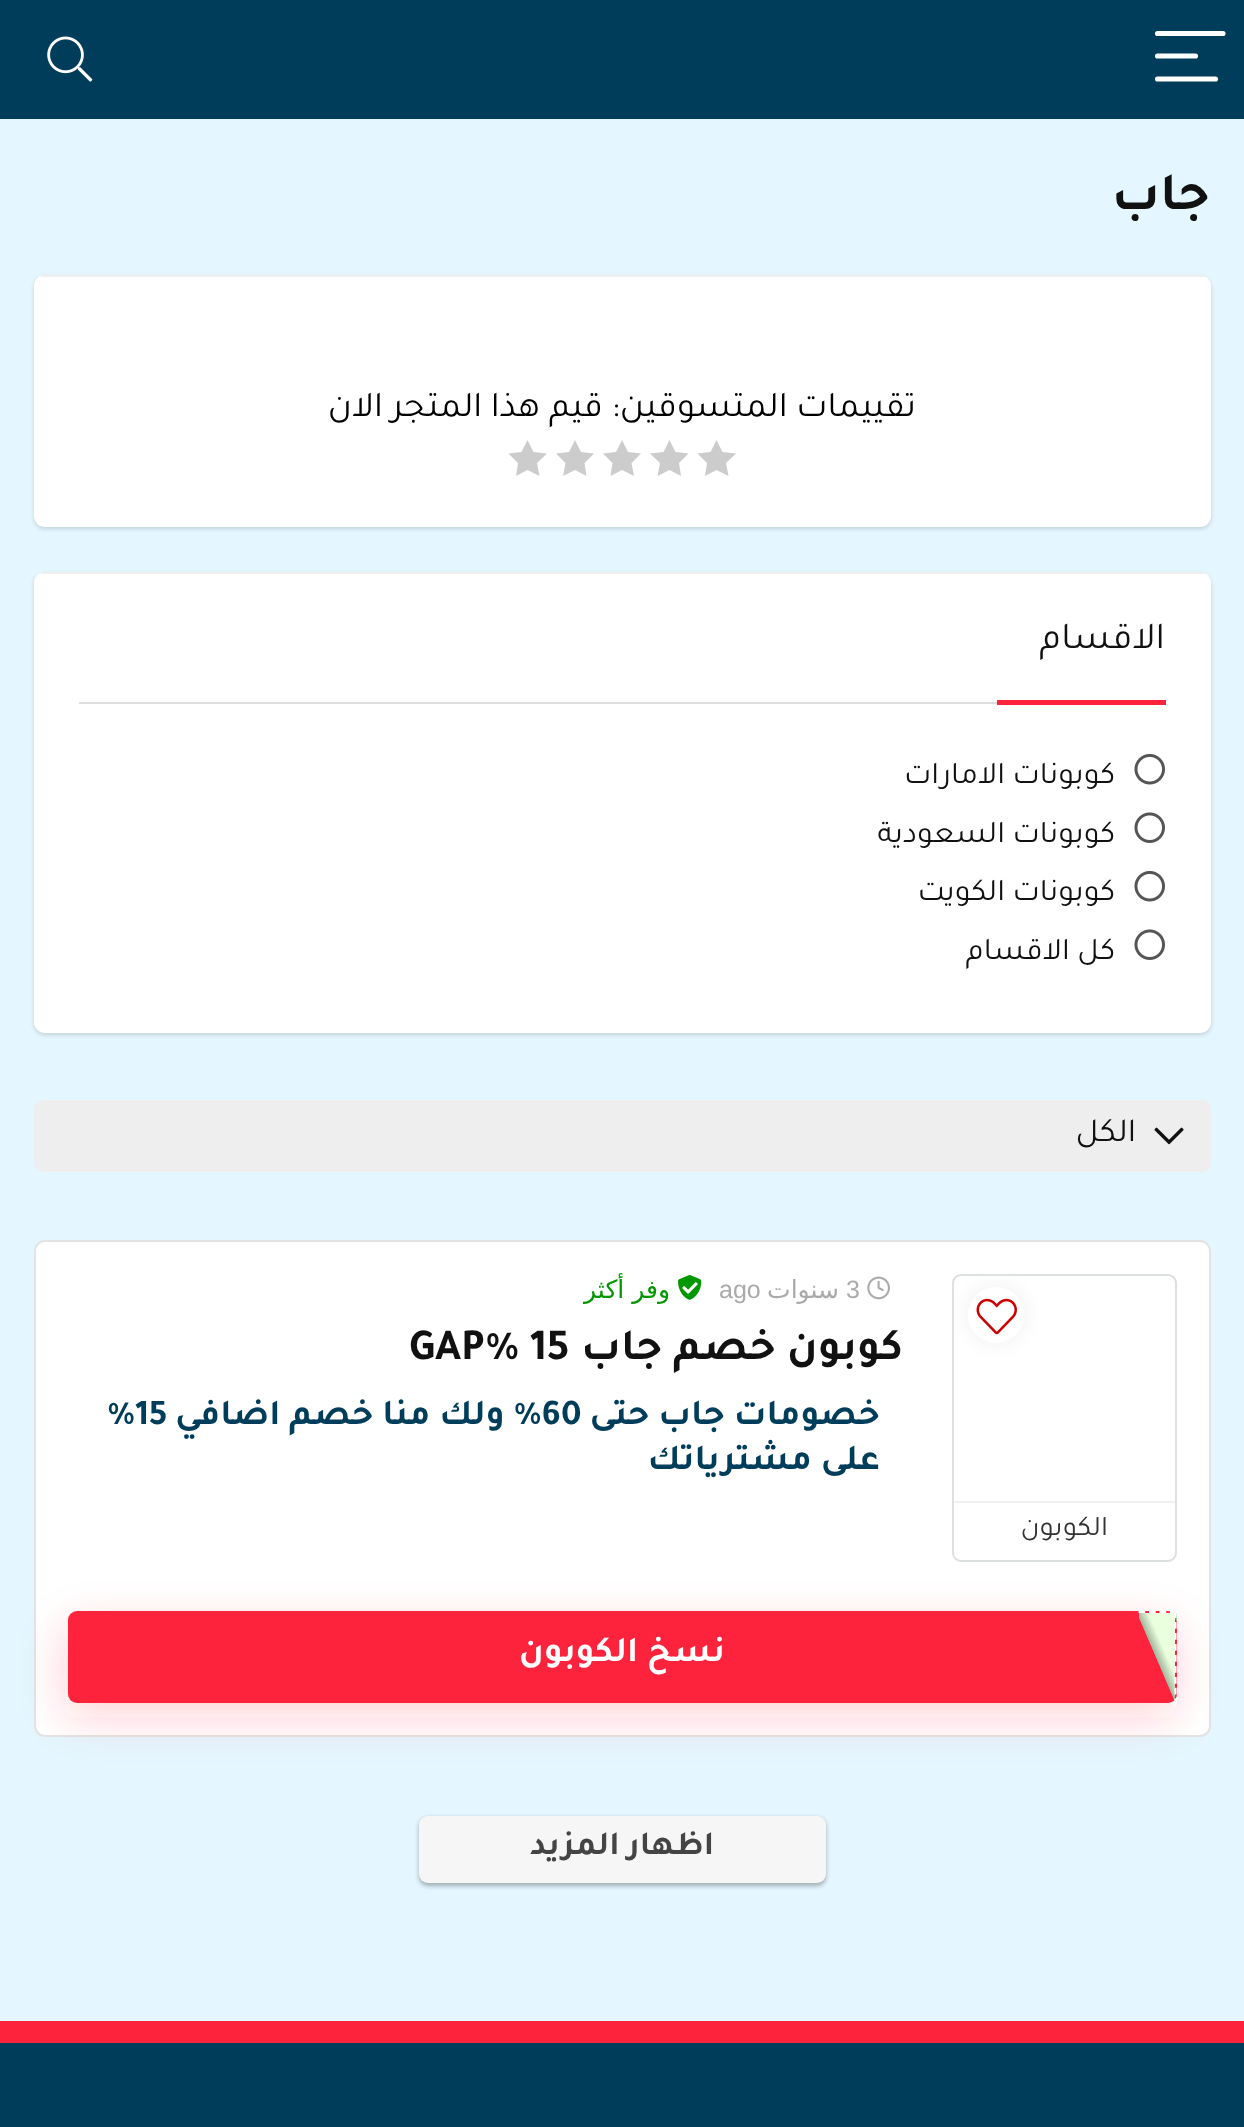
<?xml version="1.0" encoding="UTF-8"?>
<svg xmlns="http://www.w3.org/2000/svg" width="1244" height="2127">
    <defs>
        <filter id="blur1" x="-50%" y="-200%" width="200%" height="500%"><feGaussianBlur stdDeviation="2"/></filter>
        <filter id="blur2" x="-50%" y="-200%" width="200%" height="500%"><feGaussianBlur stdDeviation="11"/></filter>
        <filter id="blur3" x="-50%" y="-200%" width="200%" height="500%"><feGaussianBlur stdDeviation="21.5"/></filter>
        <linearGradient id="g1" gradientUnits="userSpaceOnUse" x1="1125" y1="1673" x2="1188" y2="1646"><stop offset="0" stop-color="#FFFFFF" stop-opacity="0"/><stop offset="0.5" stop-color="#A6B79D" stop-opacity="0"/><stop offset="0.51" stop-color="#A6B79D"/><stop offset="0.66" stop-color="#E9FFDD"/></linearGradient>
        <linearGradient id="g2" gradientUnits="userSpaceOnUse" x1="1161" y1="1673" x2="1224" y2="1646"><stop offset="0" stop-color="#FFFFFF" stop-opacity="0"/><stop offset="0.5" stop-color="#A6B79D" stop-opacity="0"/><stop offset="0.51" stop-color="#A6B79D"/><stop offset="0.66" stop-color="#E9FFDD"/></linearGradient>
    </defs>
    <rect width="100%" height="100%" fill="#E4F6FF"/>
    <rect x="0" y="0" width="1244" height="119" fill="#003D5B"/>
    <path d="M 1157.5 33.5 H 1223" fill="none" stroke="#FFFFFF" stroke-width="5.1" stroke-linecap="round"/>
    <path d="M 1157.5 56 H 1195.5" fill="none" stroke="#FFFFFF" stroke-width="5.1" stroke-linecap="round"/>
    <path d="M 1157.5 79 H 1215.5" fill="none" stroke="#FFFFFF" stroke-width="5.1" stroke-linecap="round"/>
    <image x="47" y="36" width="46" height="46" href="img_01.png"/>
    <text x="1210" y="209" font-family="Tajawal" font-size="54" font-weight="700" direction="rtl" fill="#111111">جاب</text>
    <rect x="34" y="277" width="1177" height="252" rx="11" fill="#000000" fill-opacity="0.15" filter="url(#blur1)"/>
    <rect x="34" y="275" width="1177" height="252" rx="11" fill="#FFFFFF"/>
    <rect x="41" y="275" width="1165" height="2" fill="#EFEFEF"/>
    <text x="916" y="416" font-family="Tajawal" font-size="36" direction="rtl" fill="#000000">تقييمات المتسوقين:</text>
    <text x="603" y="416" font-family="Tajawal" font-size="36" direction="rtl" fill="#000000">قيم هذا المتجر الان</text>
    <path d="M 736 453.5 L 722.5 452 L 716.5 440 L 710.5 452 L 697.5 453.5 L 707 463 L 705 476 L 716.5 470 L 728.5 476 L 726 463 Z" fill="#CCCCCC"/>
    <path d="M 688.5 453.5 L 675.5 452 L 669.5 440 L 663.5 452 L 650 453.5 L 660 463 L 657.5 476 L 669.5 470 L 681 476 L 679 463 Z" fill="#CCCCCC"/>
    <path d="M 641 453.5 L 628 452 L 622 440 L 616 452 L 603 453.5 L 612.5 463 L 610.5 476 L 622 470 L 634 476 L 631.5 463 Z" fill="#CCCCCC"/>
    <path d="M 594 453.5 L 581 452 L 575 440 L 569 452 L 556 453.5 L 565.5 463 L 563 476 L 575 470 L 586.5 476 L 584.5 463 Z" fill="#CCCCCC"/>
    <path d="M 547 453.5 L 533.5 452 L 527.5 440 L 521.5 452 L 508.5 453.5 L 518 463 L 516 476 L 527.5 470 L 539.5 476 L 537 463 Z" fill="#CCCCCC"/>
    <rect x="34" y="574" width="1177" height="461" rx="11" fill="#000000" fill-opacity="0.15" filter="url(#blur1)"/>
    <rect x="34" y="572" width="1177" height="461" rx="11" fill="#FFFFFF"/>
    <rect x="41" y="572" width="1165" height="2" fill="#EFEFEF"/>
    <rect x="79" y="702" width="918" height="2" fill="#DDDDDD"/>
    <text x="1165" y="648" font-family="Tajawal" font-size="38" direction="rtl" fill="#111111">الاقسام</text>
    <rect x="997" y="700" width="169" height="5" fill="#FE233D"/>
    <image x="1134" y="754" width="31" height="31" href="img_02.png"/>
    <text x="1115" y="783" font-family="Tajawal" font-size="31.5" direction="rtl" fill="#111111">كوبونات الامارات</text>
    <image x="1134" y="812" width="31" height="31" href="img_03.png"/>
    <text x="1115" y="842" font-family="Tajawal" font-size="31.5" direction="rtl" fill="#111111">كوبونات السعودية</text>
    <image x="1134" y="871" width="31" height="31" href="img_02.png"/>
    <text x="1115" y="900" font-family="Tajawal" font-size="31.5" direction="rtl" fill="#111111">كوبونات الكويت</text>
    <image x="1134" y="929" width="31" height="31" href="img_03.png"/>
    <text x="1115" y="959" font-family="Tajawal" font-size="31.5" direction="rtl" fill="#111111">كل الاقسام</text>
    <rect x="34" y="1100" width="1177" height="72" rx="9" fill="#EEEEEE"/>
    <image x="1154" y="1127" width="30" height="18" href="img_04.png"/>
    <text x="1136" y="1141" font-family="Tajawal" font-size="33.75" direction="rtl" fill="#111111">الكل</text>
    <rect x="35" y="1241" width="1175" height="495" rx="10" fill="#FFFFFF" stroke="#E3E3E3" stroke-width="2"/>
    <image x="867" y="1276" width="23" height="24" href="img_05.png"/>
    <text x="846" y="1298" font-family="Liberation Sans" font-size="25" fill="#AAAAAA">3</text>
    <text x="839" y="1298" font-family="DejaVu Sans" font-size="25" direction="rtl" fill="#AAAAAA">سنوات</text>
    <text x="719" y="1298" font-family="Liberation Sans" font-size="25" fill="#AAAAAA">ago</text>
    <image x="678" y="1275" width="24" height="25" href="img_06.png"/>
    <text x="670" y="1298" font-family="DejaVu Sans" font-size="25" direction="rtl" fill="#009700">وفر أكثر</text>
    <text x="903" y="1359" font-family="Tajawal" font-size="44.5" font-weight="700" direction="rtl" fill="#111111">كوبون خصم جاب</text>
    <text x="409" y="1359" font-family="Tajawal" font-size="44.5" font-weight="700" fill="#111111">GAP% 15</text>
    <text x="880" y="1424" font-family="Tajawal" font-size="36.5" font-weight="700" direction="rtl" fill="#003D5B">خصومات جاب حتى</text>
    <text x="542" y="1424" font-family="Tajawal" font-size="36.5" font-weight="700" fill="#003D5B">60</text>
    <text x="542" y="1424" font-family="Tajawal" font-size="36.5" font-weight="700" direction="rtl" fill="#003D5B">% ولك منا خصم اضافي</text>
    <text x="107" y="1424" font-family="Tajawal" font-size="36.5" font-weight="700" fill="#003D5B">%15</text>
    <text x="880" y="1469" font-family="Tajawal" font-size="36.5" font-weight="700" direction="rtl" fill="#003D5B">على مشترياتك</text>
    <rect x="953" y="1275" width="223" height="286" rx="8" fill="none" stroke="#DCE0E0" stroke-width="2"/>
    <rect x="968" y="1287" width="56" height="56" rx="28" fill="#EFEFEF" filter="url(#blur2)"/>
    <circle cx="996" cy="1315" r="28" fill="#FFFFFF"/>
    <image x="976" y="1298" width="41" height="37" href="img_07.png"/>
    <rect x="954" y="1501" width="221" height="2" fill="#F0F0F0"/>
    <text x="1108" y="1535" font-family="Tajawal" font-size="28.5" direction="rtl" fill="#333333">الكوبون</text>
    <rect x="65" y="1625" width="1110" height="92" rx="9" fill="#FE233D" fill-opacity="0.2" filter="url(#blur3)"/>
    <rect x="68" y="1611" width="1109" height="92" rx="9" fill="#FE233D"/>
    <rect x="1139" y="1613" width="36" height="88" fill="url(#g1)"/>
    <rect x="1175" y="1613" width="2" height="9" fill="url(#g2)"/>
    <path d="M 1138.5 1612 H 1177" fill="none" stroke="#FFFFFF" stroke-width="2.2" stroke-dasharray="6.75 3.76"/>
    <path d="M 1175.5 1611 V 1705.5" fill="none" stroke="#FFFFFF" stroke-width="2.2" stroke-dasharray="6.75 4.23"/>
    <text x="725" y="1661" font-family="Tajawal" font-size="36" font-weight="700" direction="rtl" fill="#FFFFFF">نسخ الكوبون</text>
    <rect x="419" y="1818" width="407" height="68" rx="9" fill="#000000" fill-opacity="0.08" filter="url(#blur1)"/>
    <rect x="419" y="1818" width="407" height="68" rx="9" fill="#3C4043" fill-opacity="0.3" filter="url(#blur1)"/>
    <rect x="419" y="1816" width="407" height="67" rx="9" fill="#F6F6F6"/>
    <text x="714" y="1854" font-family="Tajawal" font-size="33.75" font-weight="700" direction="rtl" fill="#444444">اظهار المزيد</text>
    <rect x="0" y="2043" width="1244" height="84" fill="#003D5B"/>
    <rect x="0" y="2021" width="1244" height="22" fill="#FE233D"/>
</svg>
